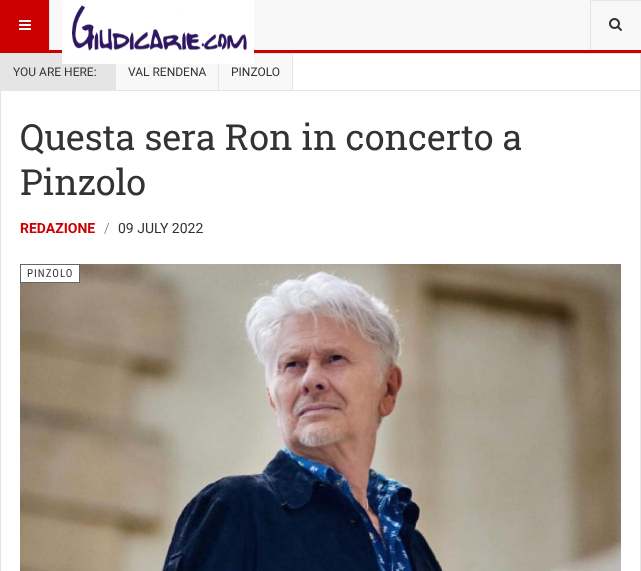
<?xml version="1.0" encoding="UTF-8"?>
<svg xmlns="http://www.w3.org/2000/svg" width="641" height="571">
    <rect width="100%" height="100%" fill="#FFFFFF"/>
    <rect x="50" y="0" width="591" height="50" fill="#F8F8F8"/>
    <rect x="0" y="50" width="641" height="3" fill="#CC0000"/>
    <rect x="0" y="0" width="49" height="50" fill="#CC0000"/>
    <rect x="49" y="0" width="1" height="50" fill="#E5E5E5"/>
    <image x="19" y="20" width="12" height="10" href="img_01.png"/>
    <rect x="0" y="53" width="641" height="1" fill="#E5E5E5"/>
    <rect x="1" y="54" width="115" height="36" fill="#E5E5E5"/>
    <rect x="116" y="63" width="102" height="27" fill="#F8F8F8"/>
    <rect x="218" y="63" width="1" height="27" fill="#E5E5E5"/>
    <rect x="219" y="54" width="73" height="36" fill="#F8F8F8"/>
    <image x="62" y="0" width="192" height="64" href="img_02.png"/>
    <rect x="591" y="0" width="50" height="1" fill="#E5E5E5"/>
    <rect x="590" y="0" width="1" height="50" fill="#E5E5E5"/>
    <image x="609" y="18" width="13" height="13" href="img_03.png"/>
    <rect x="640" y="53" width="1" height="37" fill="#E5E5E5"/>
    <rect x="0" y="53" width="1" height="37" fill="#E5E5E5"/>
    <text x="13" y="76" font-family="Roboto" font-size="12" fill="#333333">YOU ARE HERE:</text>
    <text x="128" y="76" font-family="Roboto" font-size="12" fill="#333333">VAL RENDENA</text>
    <rect x="292" y="54" width="1" height="36" fill="#E5E5E5"/>
    <text x="231" y="76" font-family="Roboto" font-size="12" fill="#333333">PINZOLO</text>
    <rect x="0.5" y="90.5" width="640" height="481" fill="none" stroke="#E5E5E5"/>
    <text font-family="Roboto Slab" font-size="36" fill="#333333">
        <tspan x="20" y="150">Questa sera Ron in concerto a</tspan>
        <tspan x="20" y="195">Pinzolo</tspan>
    </text>
    <text x="20" y="233" font-family="Roboto" font-size="14" font-weight="700" fill="#CC0000">REDAZIONE</text>
    <text x="104" y="233" font-family="Roboto" font-size="14" font-weight="300" fill="#666666">/</text>
    <text x="118" y="233" font-family="Roboto" font-size="14" fill="#333333">09 JULY 2022</text>
    <image x="20" y="264" width="601" height="307" href="img_04.png"/>
    <rect x="20.5" y="264.5" width="59" height="18" fill="#FFFFFF" stroke="#666666"/>
    <text x="27" y="277" font-family="Roboto Condensed" font-size="11" letter-spacing="1" fill="#333333">PINZOLO</text>
</svg>
